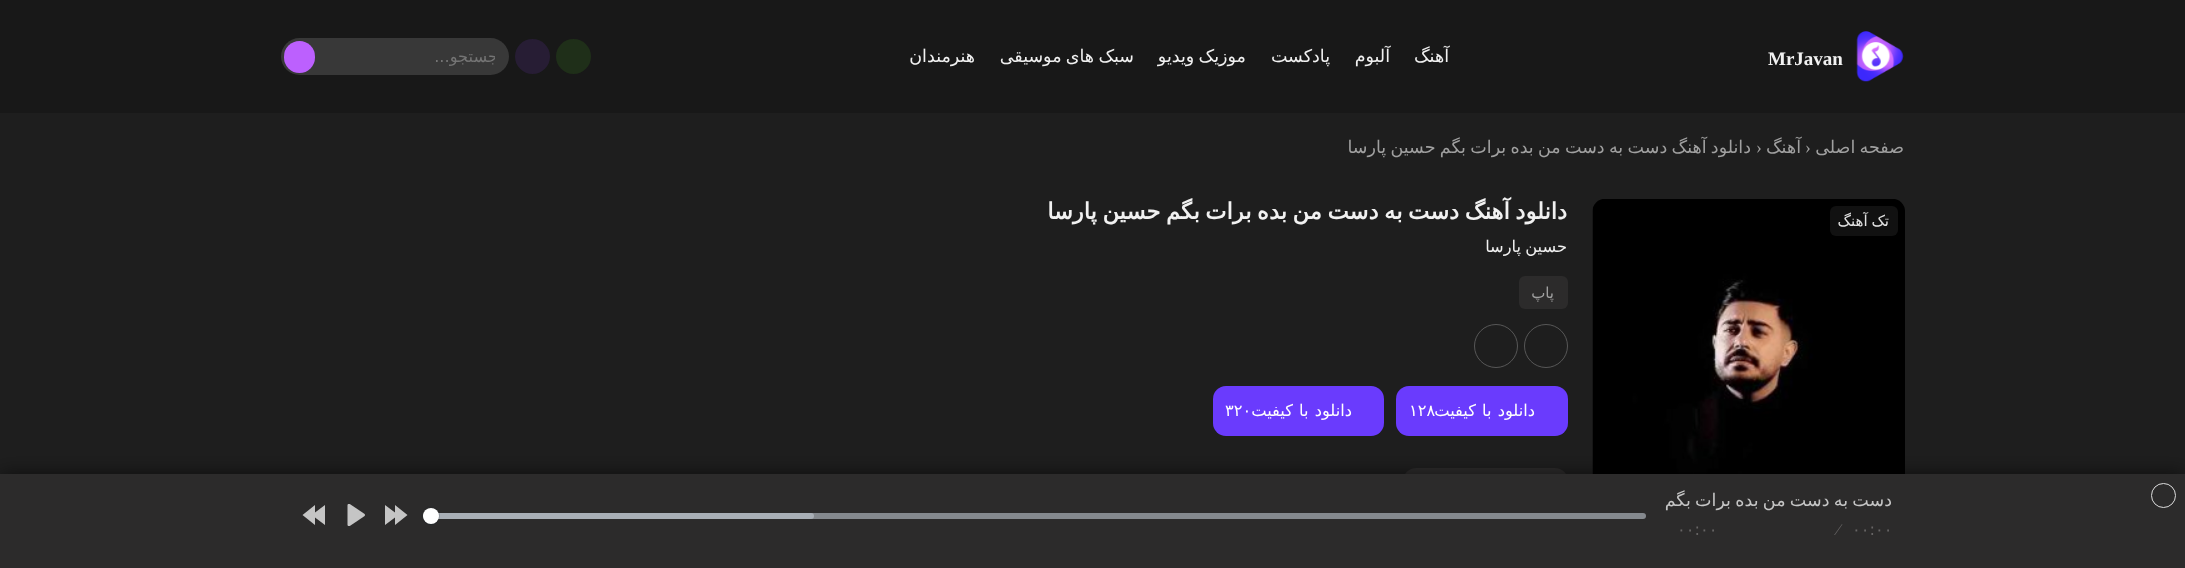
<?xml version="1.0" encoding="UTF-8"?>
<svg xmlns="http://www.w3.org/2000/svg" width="2185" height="568">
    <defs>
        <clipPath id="clip1"><rect x="295" y="46" width="200" height="20"/></clipPath>
        <filter id="blur1" x="-50%" y="-200%" width="200%" height="500%"><feGaussianBlur stdDeviation="10"/></filter>
        <filter id="blur2" x="-50%" y="-200%" width="200%" height="500%"><feGaussianBlur stdDeviation="0.5"/></filter>
    </defs>
    <rect width="100%" height="100%" fill="#1E1E1E"/>
    <rect x="0" y="0" width="2185" height="113" fill="#181818"/>
    <image x="1856" y="31" width="48" height="51" href="img_01.png"/>
    <text x="1768" y="65" font-family="Liberation Serif" font-size="19" font-weight="700" fill="#F1F1F1">MrJavan</text>
    <text x="1449" y="62" font-family="DejaVu Sans" font-size="17.5" direction="rtl" fill="#F1F1F1">آهنگ</text>
    <text x="1390" y="62" font-family="DejaVu Sans" font-size="17.5" direction="rtl" fill="#F1F1F1">آلبوم</text>
    <text x="1330" y="62" font-family="DejaVu Sans" font-size="17.5" direction="rtl" fill="#F1F1F1">پادکست</text>
    <text x="1246" y="62" word-spacing="-1.25" font-family="DejaVu Sans" font-size="17.5" direction="rtl" fill="#F1F1F1">موزیک ویدیو</text>
    <text x="1134" y="62" word-spacing="-1.25" font-family="DejaVu Sans" font-size="17.5" direction="rtl" fill="#F1F1F1">سبک های موسیقی</text>
    <text x="975" y="62" font-family="DejaVu Sans" font-size="17.5" direction="rtl" fill="#F1F1F1">هنرمندان</text>
    <circle cx="573.5" cy="56.5" r="17.5" fill="#1F2F19"/>
    <circle cx="532.5" cy="56.5" r="17.5" fill="#271D34"/>
    <rect x="281" y="38" width="228" height="37" rx="18.5" fill="#383838"/>
    <g clip-path="url(#clip1)">
        <text x="498" y="62" font-family="DejaVu Sans" font-size="16.25" direction="rtl" fill="#757575">جستجو...</text>
    </g>
    <rect x="284" y="41" width="31" height="32" rx="15.5" fill="#BC60FE"/>
    <text x="1904" y="153" word-spacing="-1.25" font-family="DejaVu Sans" font-size="17.5" direction="rtl" fill="#A0A0A0">صفحه اصلی</text>
    <text x="1801" y="153" font-family="DejaVu Sans" font-size="17.5" direction="rtl" fill="#A0A0A0">آهنگ</text>
    <text x="1756" y="153" font-family="Liberation Serif" font-size="17.5" fill="#A0A0A0">›</text>
    <text x="1751" y="153" word-spacing="-1.25" font-family="DejaVu Sans" font-size="17.5" direction="rtl" fill="#A0A0A0">دانلود آهنگ دست به دست من بده برات بگم حسین پارسا</text>
    <text x="1805" y="153" font-family="Liberation Serif" font-size="17.5" fill="#A0A0A0">›</text>
    <image x="1592" y="199" width="313" height="275" href="img_02.png"/>
    <rect x="1830" y="206" width="68" height="30" rx="6" fill="#111111"/>
    <text x="1889" y="226" word-spacing="-1" font-family="DejaVu Sans" font-size="15" direction="rtl" fill="#E2E2E2">تک آهنگ</text>
    <text x="1567" y="219" word-spacing="-1.5" font-family="DejaVu Sans" font-size="22.5" font-weight="700" direction="rtl" fill="#F1F1F1">دانلود آهنگ دست به دست من بده برات بگم حسین پارسا</text>
    <text x="1567" y="252" word-spacing="-1" font-family="DejaVu Sans" font-size="16.25" direction="rtl" fill="#F1F1F1">حسین پارسا</text>
    <rect x="1519" y="276" width="49" height="33" rx="6" fill="#2C2B2B"/>
    <text x="1554" y="298" font-family="DejaVu Sans" font-size="15" direction="rtl" fill="#A0A0A0">پاپ</text>
    <circle cx="1546" cy="346" r="21.5" fill="none" stroke="#575757"/>
    <circle cx="1496" cy="346" r="21.5" fill="none" stroke="#575757"/>
    <rect x="1396" y="386" width="172" height="50" rx="13" fill="#6A3BFD"/>
    <text x="1535" y="416" word-spacing="1" font-family="DejaVu Sans" font-size="16.25" direction="rtl" fill="#FFFFFF">دانلود با کیفیت</text>
    <text x="1409" y="416" font-family="DejaVu Sans" font-size="16.25" fill="#FFFFFF">۱۲۸</text>
    <rect x="1213" y="386" width="171" height="50" rx="13" fill="#6A3BFD"/>
    <text x="1352" y="416" word-spacing="1" font-family="DejaVu Sans" font-size="16.25" direction="rtl" fill="#FFFFFF">دانلود با کیفیت</text>
    <text x="1225" y="416" font-family="DejaVu Sans" font-size="16.25" fill="#FFFFFF">۳۲۰</text>
    <rect x="1403" y="468" width="165" height="48" rx="13" fill="#2C2B2B"/>
    <rect x="0" y="474" width="2185" height="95" fill="#000000" fill-opacity="0.58" filter="url(#blur1)"/>
    <rect x="0" y="474" width="2185" height="94" fill="#2C2B2B"/>
    <circle cx="2163.5" cy="495.5" r="12" fill="none" stroke="#DDDDDD"/>
    <text x="1892" y="506" word-spacing="-1.25" font-family="DejaVu Sans" font-size="17.5" direction="rtl" fill="#C5C5C5">دست به دست من بده برات بگم</text>
    <text x="1852" y="535" font-family="DejaVu Sans" font-size="16.25" fill="#676565">۰۰:۰۰</text>
    <text x="1837" y="535" font-family="Liberation Serif" font-size="16.25" fill="#676565">⁄</text>
    <text x="1677" y="535" font-family="DejaVu Sans" font-size="16.25" fill="#676565">۰۰:۰۰</text>
    <rect x="423" y="513" width="391" height="6" rx="3" fill="#85898F"/>
    <rect x="423" y="513" width="1223" height="6" rx="3" fill="#C1C8D1" fill-opacity="0.6"/>
    <circle cx="430.5" cy="515.5" r="9" fill="none" stroke="#23282F" stroke-opacity="0.2"/>
    <rect x="423" y="509" width="16" height="16" rx="8" fill="#23282F" fill-opacity="0.15" filter="url(#blur2)"/>
    <circle cx="431" cy="516" r="8" fill="#FFFFFF"/>
    <path d="M 395 512.5 L 385 505 V 525 L 395 517.5 V 525 L 407.5 515 L 395 505 Z" fill="#C5C5C5"/>
    <image x="347" y="504" width="18" height="22" href="img_03.png"/>
    <path d="M 315 505 L 302.5 515 L 315 525 V 517.5 L 325 525 V 505 L 315 512.5 Z" fill="#C5C5C5"/>
</svg>
